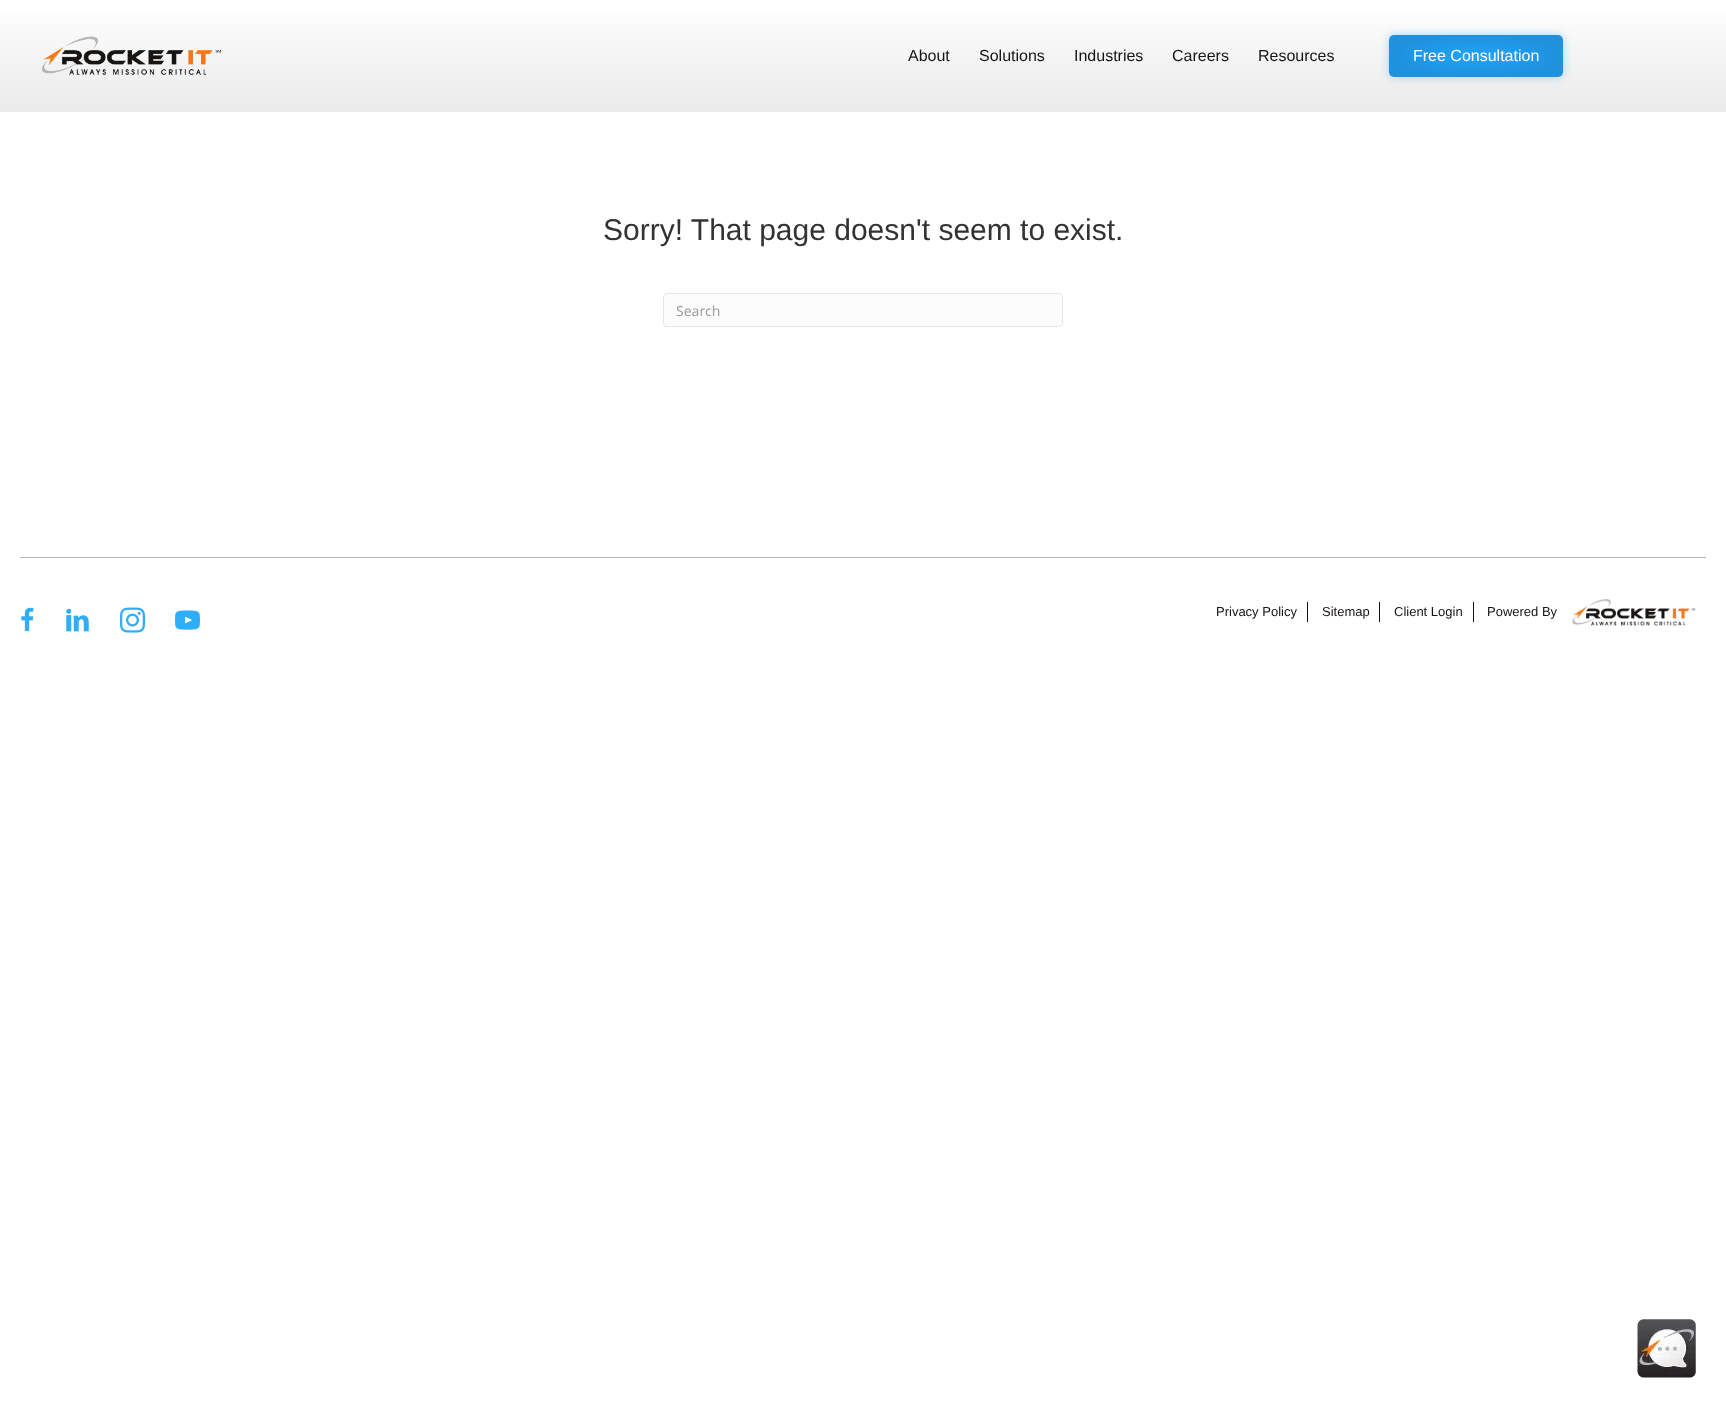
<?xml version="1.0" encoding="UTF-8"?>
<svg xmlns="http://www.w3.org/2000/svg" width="1726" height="1408">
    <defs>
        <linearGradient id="g1" gradientUnits="userSpaceOnUse" x1="863" y1="0" x2="863" y2="112"><stop offset="0" stop-color="#FFFFFF"/><stop offset="1" stop-color="#EAEAEA"/></linearGradient>
        <filter id="blur1" x="-50%" y="-200%" width="200%" height="500%"><feGaussianBlur stdDeviation="5"/></filter>
        <radialGradient id="g2" gradientUnits="userSpaceOnUse" cx="0" cy="0" r="1" gradientTransform="matrix(123 0 0 30 1476 56)"><stop offset="0" stop-color="#21A3FA"/><stop offset="0.7" stop-color="#1F91DD"/></radialGradient>
    </defs>
    <rect width="100%" height="100%" fill="#FFFFFF"/>
    <rect x="0" y="13" width="1726" height="99" fill="url(#g1)"/>
    <image x="42" y="36" width="179" height="39" href="img_01.png"/>
    <text x="908" y="61" font-family="Liberation Sans" font-size="16" fill="#171411">About</text>
    <text x="979" y="61" font-family="Liberation Sans" font-size="16" fill="#171411">Solutions</text>
    <text x="1074" y="61" font-family="Liberation Sans" font-size="16" fill="#171411">Industries</text>
    <text x="1172" y="61" font-family="Liberation Sans" font-size="16" fill="#171411">Careers</text>
    <text x="1258" y="61" font-family="Liberation Sans" font-size="16" fill="#171411">Resources</text>
    <rect x="1389" y="35" width="174" height="42" rx="5" fill="#1F91DD" fill-opacity="0.35" filter="url(#blur1)"/>
    <rect x="1389" y="35" width="174" height="42" rx="5" fill="url(#g2)"/>
    <text x="1413" y="61" font-family="Liberation Sans" font-size="16" fill="#FFFFFF">Free Consultation</text>
    <text x="603" y="240" font-family="Liberation Sans" font-size="30" fill="#333333">Sorry! That page doesn't seem to exist.</text>
    <rect x="663.5" y="293.5" width="399" height="33" rx="3.5" fill="#FCFCFC" stroke="#E6E6E6"/>
    <text x="676" y="316" font-family="Noto Sans" font-size="14" fill="#A09F9E">Search</text>
    <rect x="20" y="557" width="1686" height="1" fill="#B6B5B5"/>
    <image x="21" y="607" width="13" height="24" href="img_02.png"/>
    <image x="66" y="608" width="23" height="24" href="img_03.png"/>
    <image x="120" y="607" width="25" height="26" href="img_04.png"/>
    <image x="175" y="610" width="25" height="20" href="img_05.png"/>
    <rect x="1307" y="602" width="1" height="20" fill="#171411"/>
    <text x="1216" y="616" font-family="Liberation Sans" font-size="13" fill="#171411">Privacy Policy</text>
    <rect x="1379" y="602" width="1" height="20" fill="#171411"/>
    <text x="1322" y="616" font-family="Liberation Sans" font-size="13" fill="#171411">Sitemap</text>
    <rect x="1473" y="602" width="1" height="20" fill="#171411"/>
    <text x="1394" y="616" font-family="Liberation Sans" font-size="13" fill="#171411">Client Login</text>
    <text x="1487" y="616" font-family="Liberation Sans" font-size="13" fill="#171411">Powered By</text>
    <image x="1572" y="599" width="124" height="27" href="img_06.png"/>
    <image x="1637" y="1319" width="59" height="59" href="img_07.png"/>
</svg>
